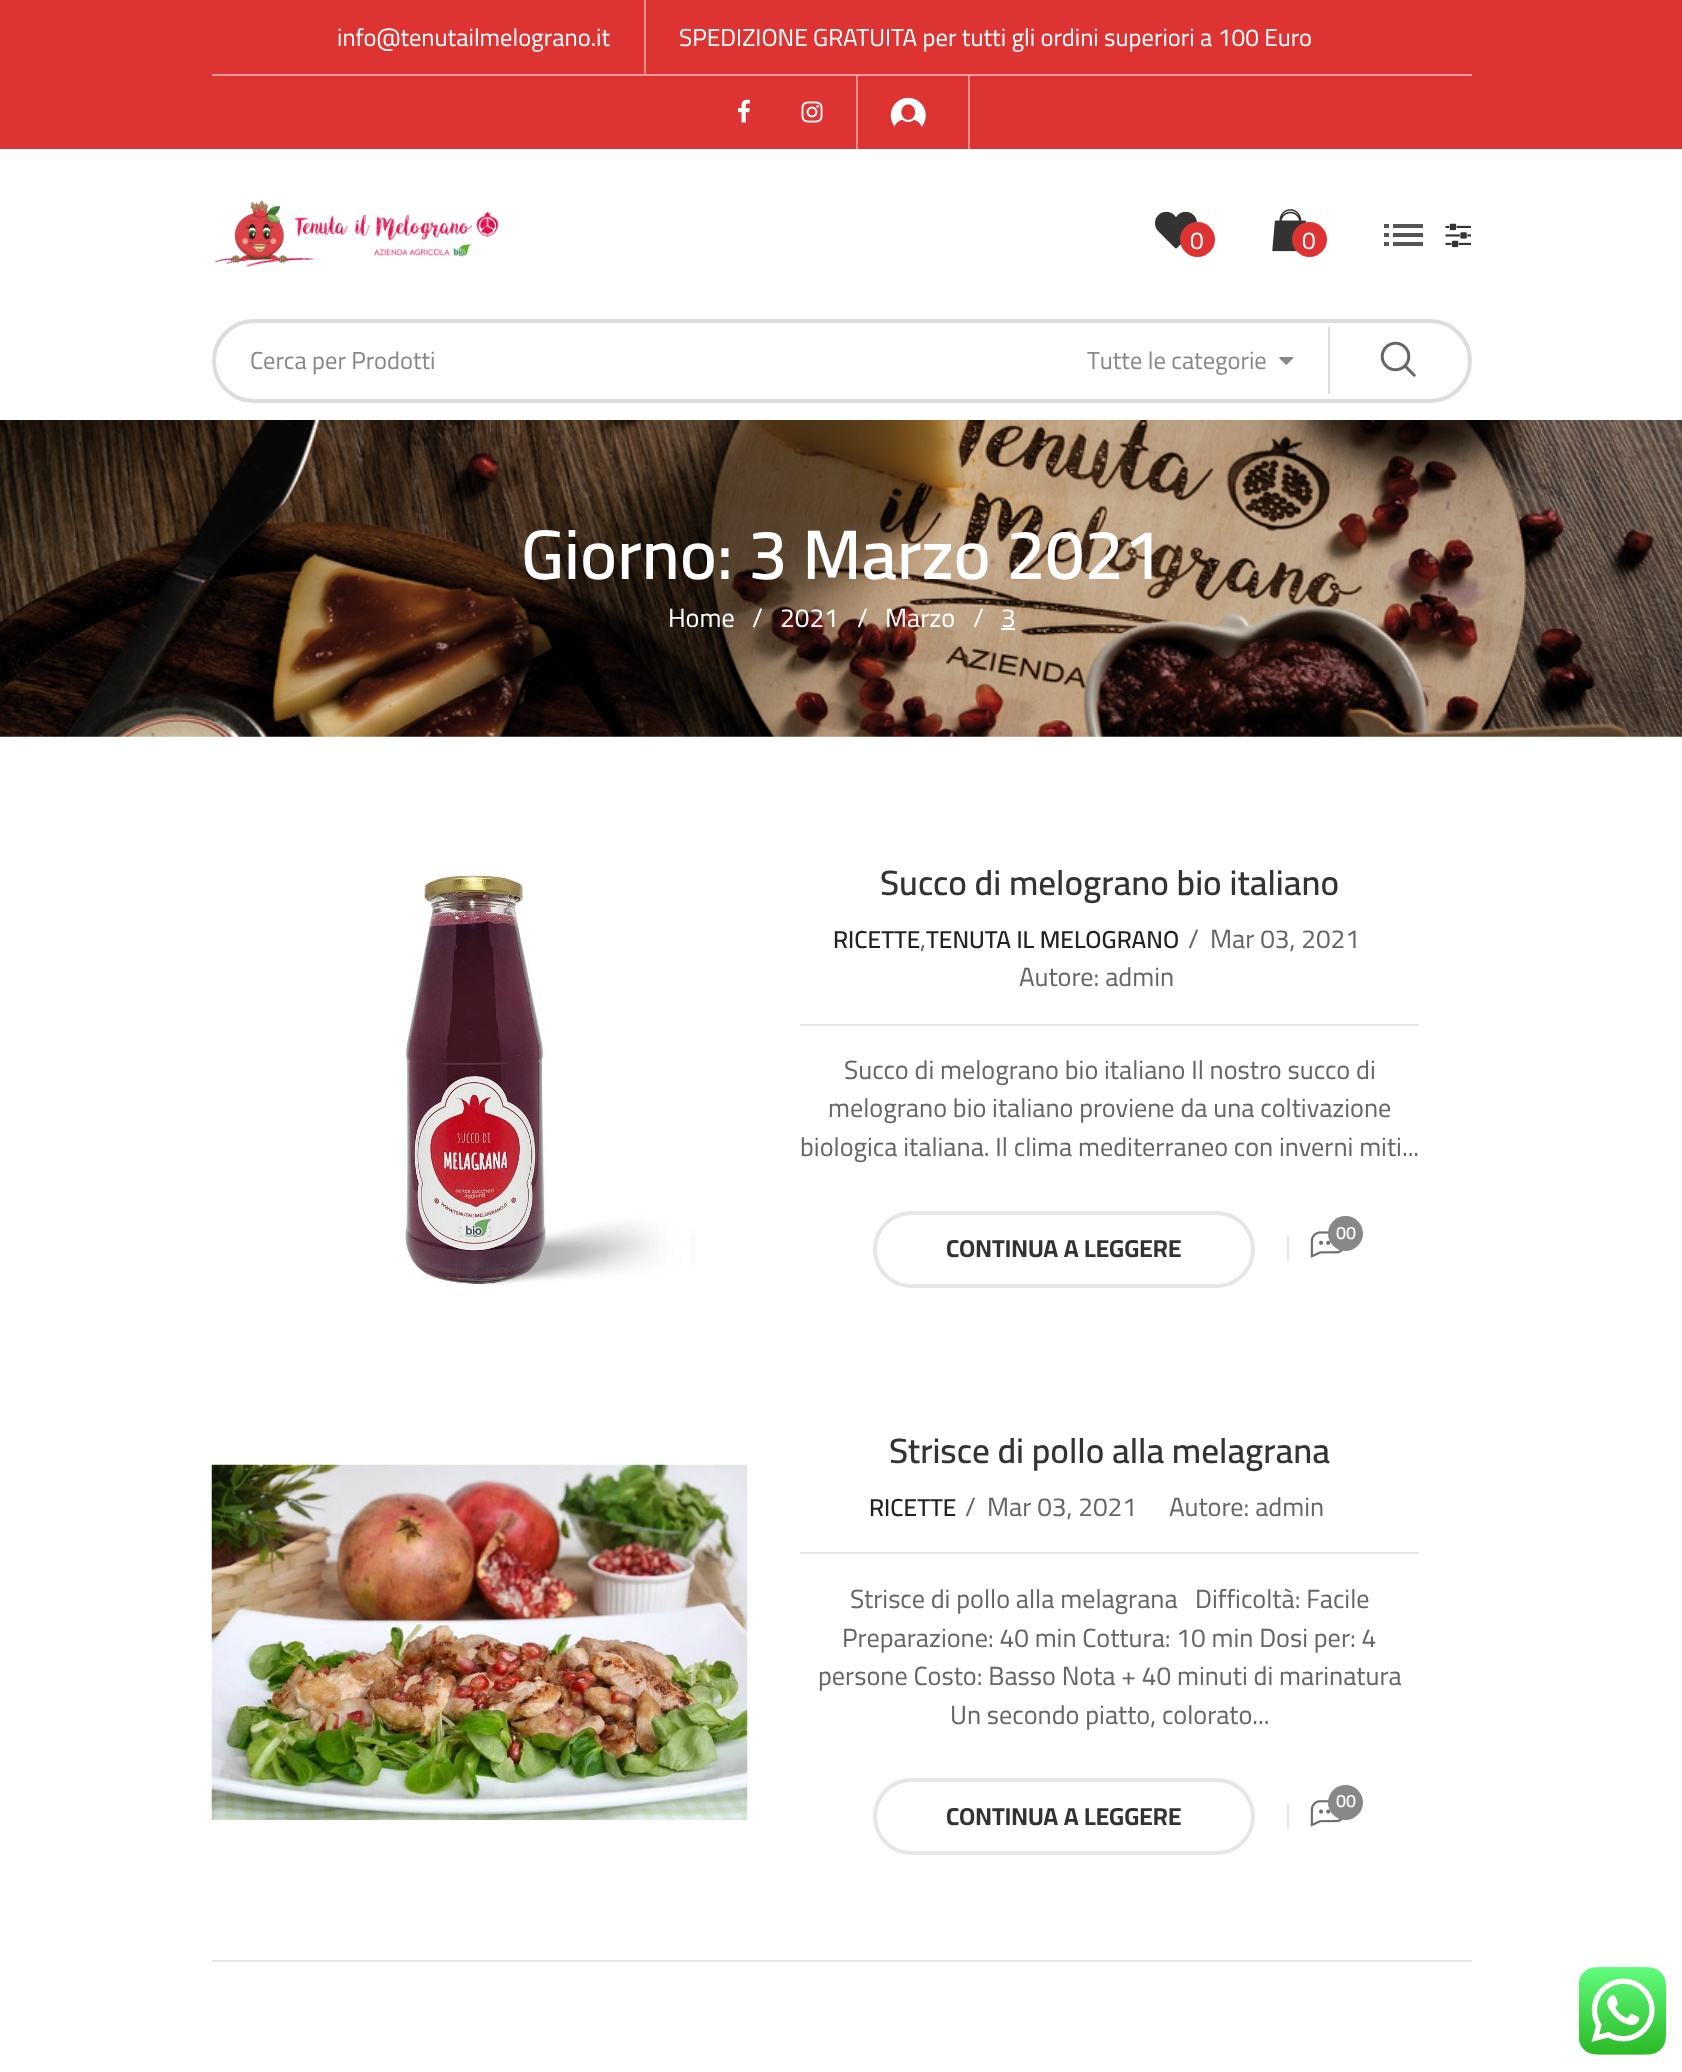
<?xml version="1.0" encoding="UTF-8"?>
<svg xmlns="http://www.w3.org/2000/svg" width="1682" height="2072">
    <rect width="100%" height="100%" fill="#FFFFFF"/>
    <rect x="0" y="0" width="1682" height="149" fill="#DD3333"/>
    <rect x="968" y="75" width="2" height="74" fill="#EC8D8D"/>
    <rect x="856" y="75" width="2" height="74" fill="#EC8D8D"/>
    <rect x="212" y="74" width="1260" height="2" fill="#EE9999"/>
    <rect x="968" y="75" width="2" height="1" fill="#F5C6C6"/>
    <rect x="856" y="75" width="2" height="1" fill="#F5C6C6"/>
    <text x="337" y="46" font-family="Cairo" font-size="24.5" fill="#FFFFFF">info@tenutailmelograno.it</text>
    <rect x="644" y="0" width="2" height="74" fill="#EC8D8D"/>
    <text x="679" y="46" font-family="Cairo" font-size="24.5" fill="#FFFFFF">SPEDIZIONE GRATUITA per tutti gli ordini superiori a 100 Euro</text>
    <image x="738" y="99" width="12" height="24" href="img_01.png"/>
    <image x="801" y="101" width="22" height="22" href="img_02.png"/>
    <image x="890" y="97" width="36" height="30" href="img_03.png"/>
    <image x="214" y="200" width="285" height="67" href="img_04.png"/>
    <image x="1155" y="211" width="42" height="38" href="img_05.png"/>
    <circle cx="1197.5" cy="239.5" r="17.5" fill="#DD3333"/>
    <text x="1190" y="249" font-family="Cairo" font-size="24.5" fill="#FFFFFF">0</text>
    <image x="1272" y="209" width="34" height="43" href="img_06.png"/>
    <circle cx="1309.5" cy="239.5" r="17.5" fill="#DD3333"/>
    <text x="1302" y="249" font-family="Cairo" font-size="24.5" fill="#FFFFFF">0</text>
    <rect x="1384" y="224" width="5" height="4" fill="#555555"/>
    <rect x="1393" y="224" width="30" height="4" fill="#555555"/>
    <rect x="1384" y="233" width="5" height="4" fill="#555555"/>
    <rect x="1393" y="233" width="30" height="4" fill="#555555"/>
    <rect x="1384" y="242" width="5" height="4" fill="#555555"/>
    <rect x="1393" y="242" width="30" height="4" fill="#555555"/>
    <image x="1445" y="223" width="26" height="25" href="img_07.png"/>
    <rect x="214" y="321" width="1256" height="80" rx="40" fill="none" stroke="#DDDDDD" stroke-width="4"/>
    <text x="250" y="369" font-family="Cairo" font-size="24.5" fill="#888888">Cerca per Prodotti</text>
    <text x="1087" y="369" font-family="Cairo" font-size="24.5" fill="#888888">Tutte le categorie</text>
    <image x="1279" y="357" width="15" height="8" href="img_08.png"/>
    <rect x="1328" y="327" width="2" height="67" fill="#DDDDDD"/>
    <image x="1380" y="341" width="36" height="36" href="img_09.png"/>
    <image x="0" y="420" width="1682" height="317" href="img_10.png"/>
    <text x="521" y="579" font-family="Cairo" font-size="70" font-weight="600" fill="#FFFFFF">Giorno: 3 Marzo 2021</text>
    <text x="668" y="627" font-family="Cairo" font-size="26.25" fill="#FFFFFF">Home</text>
    <text x="752" y="627" font-family="Cairo" font-size="26.25" fill="#FFFFFF">/</text>
    <text x="780" y="627" font-family="Cairo" font-size="26.25" fill="#FFFFFF">2021</text>
    <text x="857" y="627" font-family="Cairo" font-size="26.25" fill="#FFFFFF">/</text>
    <text x="885" y="627" font-family="Cairo" font-size="26.25" fill="#FFFFFF">Marzo</text>
    <text x="973" y="627" font-family="Cairo" font-size="26.25" fill="#FFFFFF">/</text>
    <text x="1001" y="627" font-family="Cairo" font-size="26.25" fill="#FFFFFF">3</text>
    <rect x="1001" y="628" width="14" height="2" fill="#FFFFFF"/>
    <image x="404" y="874" width="292" height="411" href="img_11.png"/>
    <text x="880" y="895" font-family="Cairo" font-size="35" font-weight="600" fill="#333333">Succo di melograno bio italiano</text>
    <rect x="800" y="1024" width="619" height="2" fill="#E6E6E6"/>
    <text x="833" y="948" font-family="Cairo" font-size="24.5" font-weight="600" fill="#222222">RICETTE</text>
    <text x="920" y="948" font-family="Cairo" font-size="26.25" fill="#666666">,</text>
    <text x="926" y="948" font-family="Cairo" font-size="24.5" font-weight="600" fill="#222222">TENUTA IL MELOGRANO</text>
    <text x="1188" y="948" font-family="Cairo" font-size="26.25" fill="#666666">/</text>
    <text x="1210" y="948" font-family="Cairo" font-size="26.25" fill="#666666">Mar 03, 2021</text>
    <text x="1019" y="986" font-family="Cairo" font-size="26.25" fill="#666666">Autore: admin</text>
    <text x="844" y="1079" font-family="Cairo" font-size="26.25" fill="#666666">Succo di melograno bio italiano Il nostro succo di</text>
    <text x="828" y="1117" font-family="Cairo" font-size="26.25" fill="#666666">melograno bio italiano proviene da una coltivazione</text>
    <text x="800" y="1156" font-family="Cairo" font-size="26.25" fill="#666666">biologica italiana. Il clima mediterraneo con inverni miti...</text>
    <rect x="875" y="1213" width="378" height="73" rx="36.5" fill="none" stroke="#E6E6E6" stroke-width="4"/>
    <text x="946" y="1257" font-family="Cairo" font-size="24.5" font-weight="700" fill="#333333">CONTINUA A LEGGERE</text>
    <text x="1285" y="1255" font-family="Cairo" font-size="26.25" fill="#E6E6E6">|</text>
    <image x="1310" y="1231" width="34" height="27" href="img_12.png"/>
    <circle cx="1345.5" cy="1233.5" r="17.5" fill="#888888"/>
    <text x="1336" y="1239" font-family="Cairo" font-size="18" font-weight="600" fill="#FFFFFF">00</text>
    <image x="211" y="1464" width="537" height="356" href="img_13.png"/>
    <text x="889" y="1463" font-family="Cairo" font-size="35" font-weight="600" fill="#333333">Strisce di pollo alla melagrana</text>
    <rect x="800" y="1552" width="619" height="2" fill="#E6E6E6"/>
    <text x="869" y="1516" font-family="Cairo" font-size="24.5" font-weight="600" fill="#222222">RICETTE</text>
    <text x="965" y="1516" font-family="Cairo" font-size="26.25" fill="#666666">/</text>
    <text x="987" y="1516" font-family="Cairo" font-size="26.25" fill="#666666">Mar 03, 2021</text>
    <text x="1169" y="1516" font-family="Cairo" font-size="26.25" fill="#666666">Autore: admin</text>
    <text x="850" y="1608" font-family="Cairo" font-size="26.25" fill="#666666" xml:space="preserve">Strisce di pollo alla melagrana   Difficoltà: Facile</text>
    <text x="842" y="1647" font-family="Cairo" font-size="26.25" fill="#666666">Preparazione: 40 min Cottura: 10 min Dosi per: 4</text>
    <text x="818" y="1685" font-family="Cairo" font-size="26.25" fill="#666666">persone Costo: Basso Nota + 40 minuti di marinatura</text>
    <text x="950" y="1724" font-family="Cairo" font-size="26.25" fill="#666666">Un secondo piatto, colorato...</text>
    <rect x="875" y="1780" width="378" height="73" rx="36.5" fill="none" stroke="#E6E6E6" stroke-width="4"/>
    <text x="946" y="1825" font-family="Cairo" font-size="24.5" font-weight="700" fill="#333333">CONTINUA A LEGGERE</text>
    <text x="1285" y="1823" font-family="Cairo" font-size="26.25" fill="#E6E6E6">|</text>
    <image x="1310" y="1800" width="34" height="27" href="img_14.png"/>
    <circle cx="1345.5" cy="1802.5" r="17.5" fill="#888888"/>
    <text x="1336" y="1807" font-family="Cairo" font-size="18" font-weight="600" fill="#FFFFFF">00</text>
    <rect x="212" y="1960" width="1260" height="2" fill="#E6E6E6"/>
    <image x="1579" y="1967" width="87" height="88" href="img_15.png"/>
</svg>
